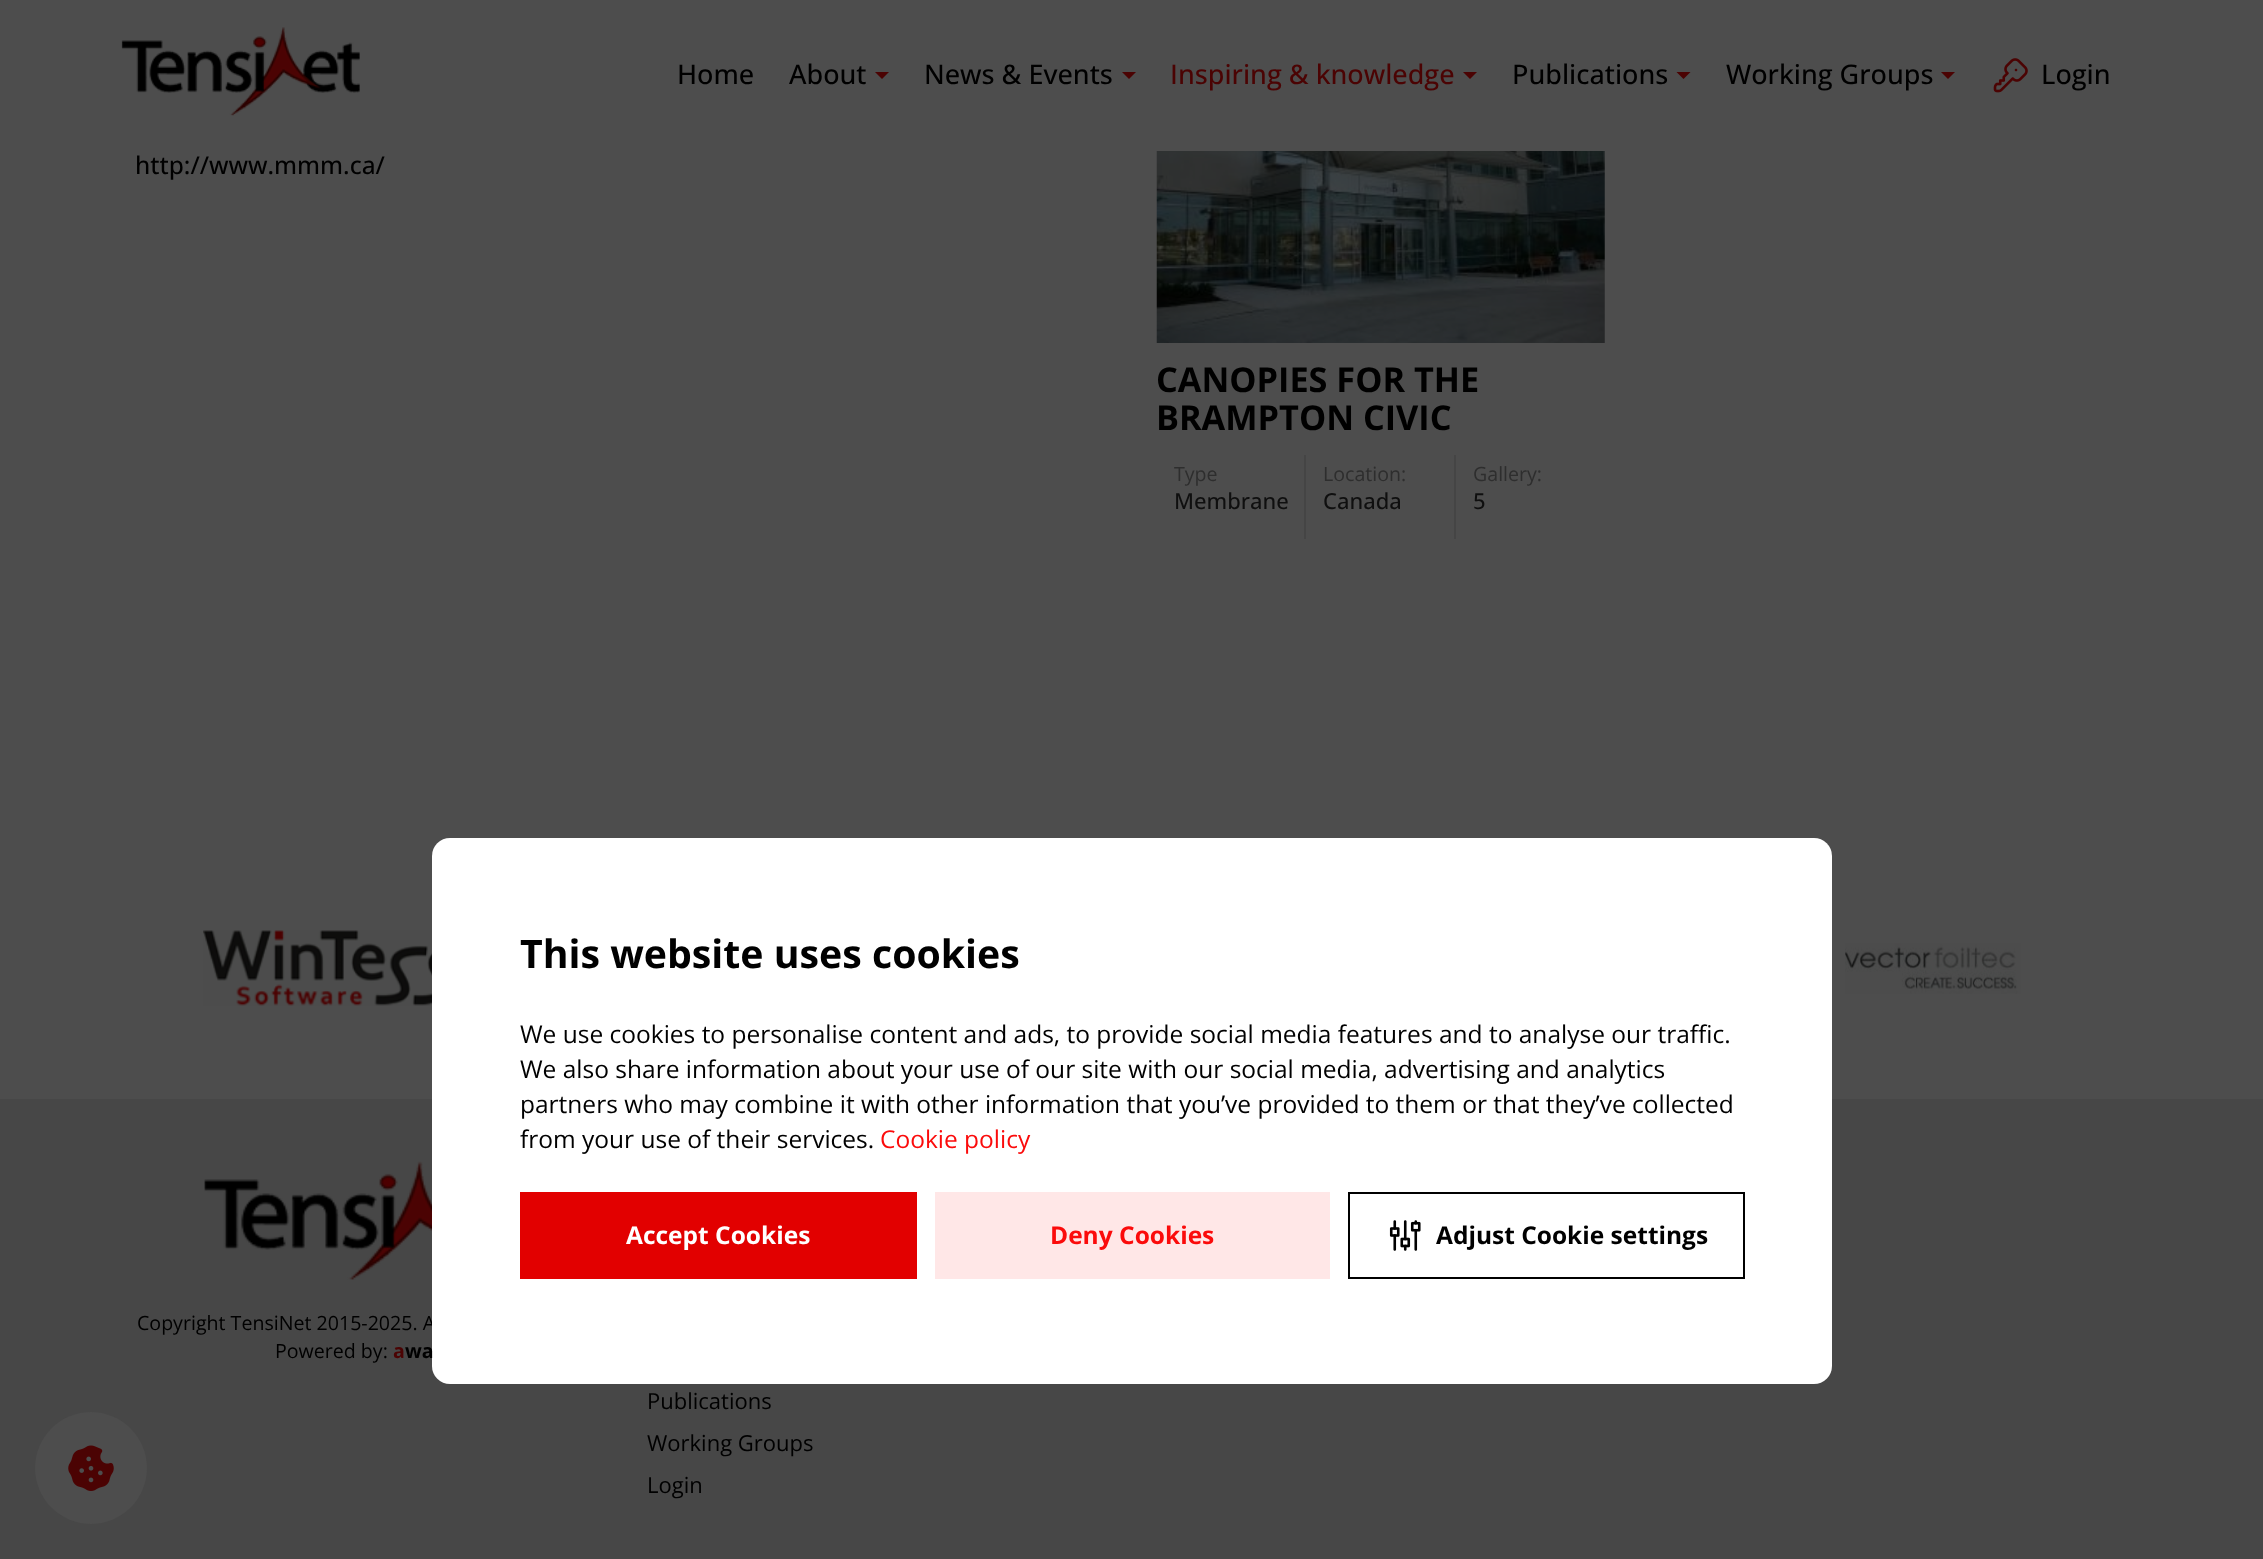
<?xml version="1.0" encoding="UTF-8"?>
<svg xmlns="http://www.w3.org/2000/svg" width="2263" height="1559">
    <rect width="100%" height="100%" fill="#4D4D4D"/>
    <image x="121" y="27" width="239" height="89" href="img_01.png"/>
    <text x="677" y="84" font-family="Open Sans" font-size="27" font-weight="500" fill="#000000">Home</text>
    <text x="789" y="84" font-family="Open Sans" font-size="27" font-weight="500" fill="#000000">About</text>
    <path d="M 875 72 H 889 L 882 79 Z" fill="#4B0303"/>
    <text x="924" y="84" font-family="Open Sans" font-size="27" font-weight="500" fill="#000000">News &amp; Events</text>
    <path d="M 1122 72 H 1136 L 1129 79 Z" fill="#4B0303"/>
    <text x="1170" y="84" font-family="Open Sans" font-size="27" font-weight="500" fill="#4B0303">Inspiring &amp; knowledge</text>
    <path d="M 1463 72 H 1477 L 1470 79 Z" fill="#4B0303"/>
    <text x="1512" y="84" font-family="Open Sans" font-size="27" font-weight="500" fill="#000000">Publications</text>
    <path d="M 1676.5 72 H 1690.5 L 1683.5 79 Z" fill="#4B0303"/>
    <text x="1726" y="84" font-family="Open Sans" font-size="27" font-weight="500" fill="#000000">Working Groups</text>
    <path d="M 1941 72 H 1955 L 1948 79 Z" fill="#4B0303"/>
    <image x="1993" y="58" width="35" height="35" href="img_02.png"/>
    <text x="2041" y="84" font-family="Open Sans" font-size="27" font-weight="500" fill="#000000">Login</text>
    <text x="135" y="174" font-family="Open Sans" font-size="24.5" font-weight="500" fill="#000000">http://www.mmm.ca/</text>
    <image x="1156" y="151" width="449" height="192" href="img_03.png"/>
    <text font-family="Open Sans" font-size="34.25" font-weight="700" fill="#000000">
        <tspan x="1156" y="392">CANOPIES FOR THE</tspan>
        <tspan x="1156" y="430">BRAMPTON CIVIC</tspan>
    </text>
    <rect x="1304" y="455" width="2" height="84" fill="#454545"/>
    <text x="1174" y="481" font-family="Open Sans" font-size="19.6" fill="#2E2E2E">Type</text>
    <text x="1174" y="509" font-family="Open Sans" font-size="22" font-weight="500" fill="#0F0F0F">Membrane</text>
    <rect x="1454" y="455" width="2" height="84" fill="#454545"/>
    <text x="1323" y="481" font-family="Open Sans" font-size="19.6" fill="#2E2E2E">Location:</text>
    <text x="1323" y="509" font-family="Open Sans" font-size="22" font-weight="500" fill="#0F0F0F">Canada</text>
    <text x="1473" y="481" font-family="Open Sans" font-size="19.6" fill="#2E2E2E">Gallery:</text>
    <text x="1473" y="509" font-family="Open Sans" font-size="22" font-weight="500" fill="#0F0F0F">5</text>
    <image x="203" y="930" width="229" height="76" href="img_04.png"/>
    <image x="1845" y="943" width="176" height="51" href="img_05.png"/>
    <rect x="0" y="1099" width="2263" height="460" fill="#474747"/>
    <text x="137" y="1330" font-family="Open Sans" font-size="19.6" fill="#000000">Copyright TensiNet 2015-2025. A</text>
    <rect x="432" y="838" width="1400" height="546" rx="18" fill="#FFFFFF"/>
    <text x="520" y="968" font-family="Open Sans" font-size="39.25" font-weight="700" fill="#000000">This website uses cookies</text>
    <text font-family="Open Sans" font-size="24.5" fill="#000000">
        <tspan x="520" y="1043">We use cookies to personalise content and ads, to provide social media features and to analyse our traffic.</tspan>
        <tspan x="520" y="1078">We also share information about your use of our site with our social media, advertising and analytics</tspan>
        <tspan x="520" y="1113">partners who may combine it with other information that you’ve provided to them or that they’ve collected</tspan>
        <tspan x="520" y="1148">from your use of their services.</tspan>
    </text>
    <text x="880" y="1148" font-family="Open Sans" font-size="24.5" fill="#FB0B0B">Cookie policy</text>
    <rect x="520" y="1192" width="397" height="87" fill="#E20000"/>
    <text x="626" y="1244" font-family="Open Sans" font-size="24.5" font-weight="700" fill="#FFFFFF">Accept Cookies</text>
    <rect x="935" y="1192" width="395" height="87" fill="#FFE7E7"/>
    <text x="1050" y="1244" font-family="Open Sans" font-size="24.5" font-weight="700" fill="#FB0B0B">Deny Cookies</text>
    <rect x="1349" y="1193" width="395" height="85" fill="none" stroke="#000000" stroke-width="2"/>
    <image x="1389" y="1220" width="32" height="31" href="img_06.png"/>
    <text x="1436" y="1244" font-family="Open Sans" font-size="24.5" font-weight="700" fill="#000000">Adjust Cookie settings</text>
    <circle cx="91" cy="1468" r="56" fill="#4D4D4D"/>
    <image x="68" y="1445" width="46" height="46" href="img_07.png"/>
    <image x="204" y="1161" width="228" height="119" href="img_08.png"/>
    <text x="275" y="1358" font-family="Open Sans" font-size="19.6" fill="#000000">Powered by:</text>
    <text x="393" y="1358" font-family="Open Sans" font-size="19.6" font-weight="700" fill="#4B0303">a</text>
    <text x="405" y="1358" font-family="Open Sans" font-size="19.6" font-weight="700" fill="#000000">wa</text>
    <text font-family="Open Sans" font-size="22" fill="#000000">
        <tspan x="647" y="1409">Publications</tspan>
        <tspan x="647" y="1451">Working Groups</tspan>
        <tspan x="647" y="1493">Login</tspan>
    </text>
</svg>
